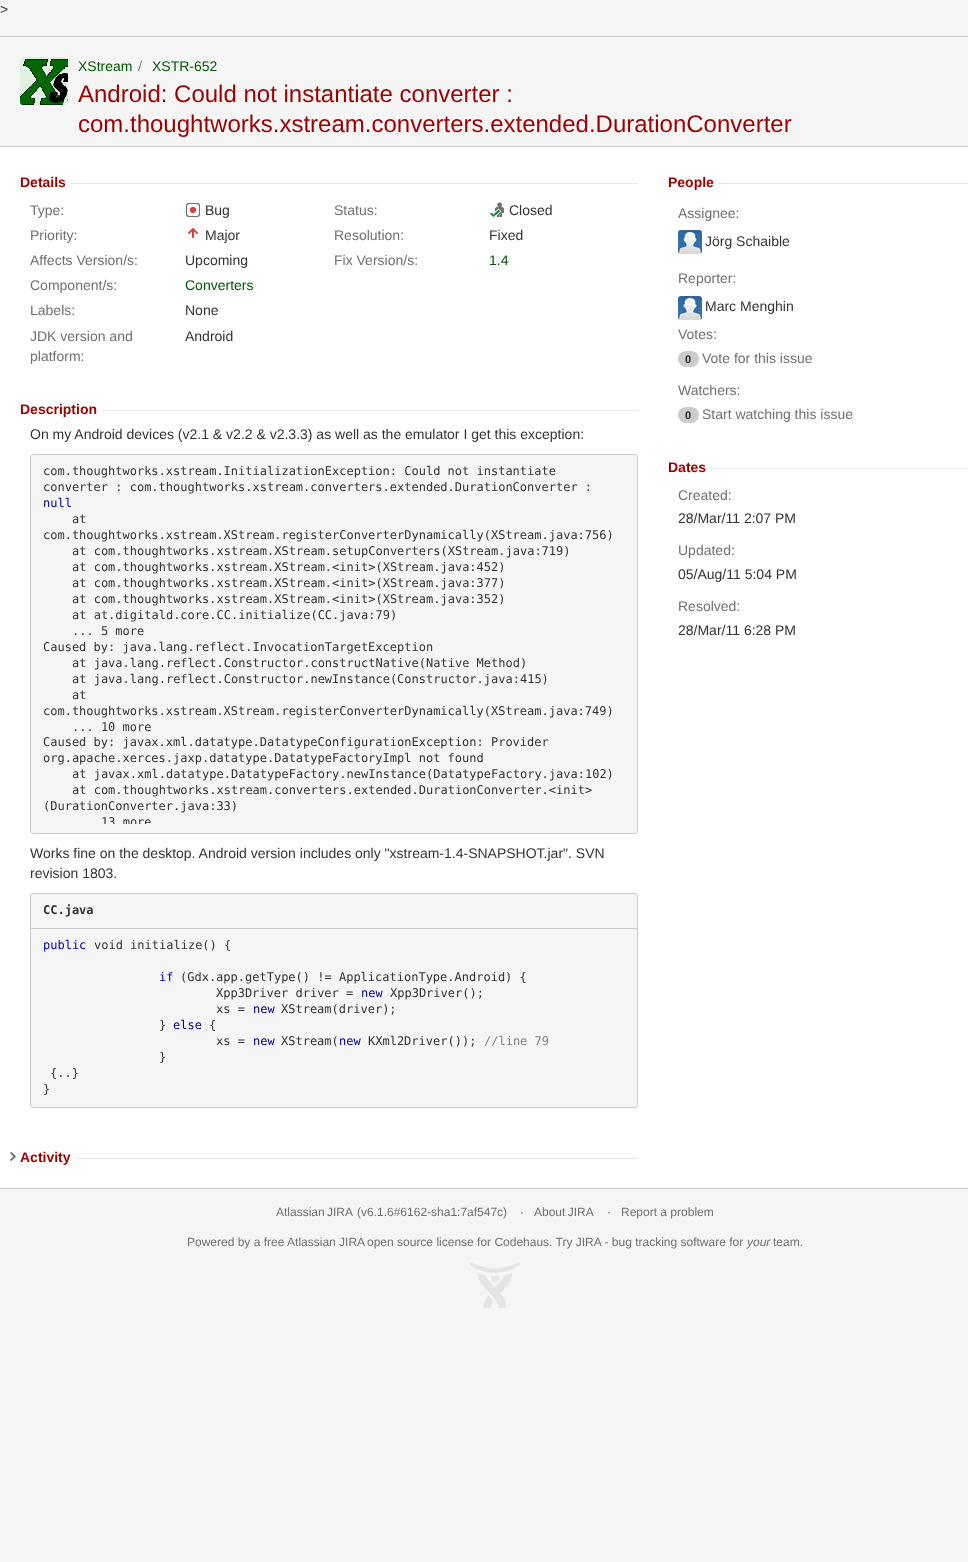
<?xml version="1.0" encoding="UTF-8"?>
<svg xmlns="http://www.w3.org/2000/svg" width="968" height="1562">
    <defs>
        <clipPath id="clip1"><rect x="43" y="464" width="582" height="360"/></clipPath>
    </defs>
    <rect width="100%" height="100%" fill="#F5F5F5"/>
    <text x="0" y="14" font-family="Liberation Sans" font-size="14" fill="#333333">&gt;</text>
    <rect x="0" y="36" width="968" height="1" fill="#CCCCCC"/>
    <rect x="0" y="147" width="968" height="1041" fill="#FFFFFF"/>
    <image x="20" y="57" width="48" height="48" href="img_01.png"/>
    <text x="78" y="71" font-family="Liberation Sans" font-size="14" fill="#005500">XStream</text>
    <path d="M 139 71 L 142 61 H 141 L 138 71 Z" fill="#707070"/>
    <text x="152" y="71" font-family="Liberation Sans" font-size="14" fill="#005500">XSTR-652</text>
    <text font-family="Liberation Sans" font-size="24" fill="#990000">
        <tspan x="78" y="102">Android: Could not instantiate converter :</tspan>
        <tspan x="78" y="132">com.thoughtworks.xstream.converters.extended.DurationConverter</tspan>
    </text>
    <rect x="0" y="146" width="968" height="1" fill="#CCCCCC"/>
    <rect x="0" y="1188" width="968" height="1" fill="#CCCCCC"/>
    <rect x="71" y="183" width="567" height="1" fill="#E6E6E6"/>
    <text x="20" y="187" font-family="Liberation Sans" font-size="14" font-weight="700" fill="#990000">Details</text>
    <text x="30" y="215" font-family="Liberation Sans" font-size="14" fill="#707070">Type:</text>
    <image x="186" y="203" width="14" height="14" href="img_02.png"/>
    <text x="205" y="215" font-family="Liberation Sans" font-size="14" fill="#333333">Bug</text>
    <text x="334" y="215" font-family="Liberation Sans" font-size="14" fill="#707070">Status:</text>
    <image x="490" y="202" width="14" height="15" href="img_03.png"/>
    <text x="509" y="215" font-family="Liberation Sans" font-size="14" fill="#333333">Closed</text>
    <text x="30" y="240" font-family="Liberation Sans" font-size="14" fill="#707070">Priority:</text>
    <image x="188" y="228" width="10" height="10" href="img_04.png"/>
    <text x="205" y="240" font-family="Liberation Sans" font-size="14" fill="#333333">Major</text>
    <text x="334" y="240" font-family="Liberation Sans" font-size="14" fill="#707070">Resolution:</text>
    <text x="489" y="240" font-family="Liberation Sans" font-size="14" fill="#333333">Fixed</text>
    <text x="30" y="265" font-family="Liberation Sans" font-size="14" fill="#707070">Affects Version/s:</text>
    <text x="185" y="265" font-family="Liberation Sans" font-size="14" fill="#333333">Upcoming</text>
    <text x="334" y="265" font-family="Liberation Sans" font-size="14" fill="#707070">Fix Version/s:</text>
    <text x="489" y="265" font-family="Liberation Sans" font-size="14" fill="#005500">1.4</text>
    <text x="30" y="290" font-family="Liberation Sans" font-size="14" fill="#707070">Component/s:</text>
    <text x="185" y="290" font-family="Liberation Sans" font-size="14" fill="#005500">Converters</text>
    <text x="30" y="315" font-family="Liberation Sans" font-size="14" fill="#707070">Labels:</text>
    <text x="185" y="315" font-family="Liberation Sans" font-size="14" fill="#333333">None</text>
    <text font-family="Liberation Sans" font-size="14" fill="#707070">
        <tspan x="30" y="341">JDK version and</tspan>
        <tspan x="30" y="361">platform:</tspan>
    </text>
    <text x="185" y="341" font-family="Liberation Sans" font-size="14" fill="#333333">Android</text>
    <rect x="102" y="410" width="536" height="1" fill="#E6E6E6"/>
    <text x="20" y="414" font-family="Liberation Sans" font-size="14" font-weight="700" fill="#990000">Description</text>
    <text x="30" y="439" font-family="Liberation Sans" font-size="14" fill="#333333">On my Android devices (v2.1 &amp; v2.2 &amp; v2.3.3) as well as the emulator I get this exception:</text>
    <rect x="30.5" y="454.5" width="607" height="379" rx="2.5" fill="#F5F5F5" stroke="#CCCCCC"/>
    <text font-family="DejaVu Sans Mono" font-size="12" fill="#333333">
        <tspan x="43" y="475">com.thoughtworks.xstream.InitializationException: Could not instantiate</tspan>
        <tspan x="43" y="491">converter : com.thoughtworks.xstream.converters.extended.DurationConverter :</tspan>
    </text>
    <text x="43" y="507" font-family="DejaVu Sans Mono" font-size="12" fill="#000091">null</text>
    <text x="72" y="523" font-family="DejaVu Sans Mono" font-size="12" fill="#333333">at</text>
    <text x="43" y="539" font-family="DejaVu Sans Mono" font-size="12" fill="#333333">com.thoughtworks.xstream.XStream.registerConverterDynamically(XStream.java:756)</text>
    <text font-family="DejaVu Sans Mono" font-size="12" fill="#333333">
        <tspan x="72" y="555">at com.thoughtworks.xstream.XStream.setupConverters(XStream.java:719)</tspan>
        <tspan x="72" y="571">at com.thoughtworks.xstream.XStream.&lt;init&gt;(XStream.java:452)</tspan>
        <tspan x="72" y="587">at com.thoughtworks.xstream.XStream.&lt;init&gt;(XStream.java:377)</tspan>
        <tspan x="72" y="603">at com.thoughtworks.xstream.XStream.&lt;init&gt;(XStream.java:352)</tspan>
        <tspan x="72" y="619">at at.digitald.core.CC.initialize(CC.java:79)</tspan>
        <tspan x="72" y="635">... 5 more</tspan>
    </text>
    <text x="43" y="651" font-family="DejaVu Sans Mono" font-size="12" fill="#333333">Caused by: java.lang.reflect.InvocationTargetException</text>
    <text font-family="DejaVu Sans Mono" font-size="12" fill="#333333">
        <tspan x="72" y="667">at java.lang.reflect.Constructor.constructNative(Native Method)</tspan>
        <tspan x="72" y="683">at java.lang.reflect.Constructor.newInstance(Constructor.java:415)</tspan>
        <tspan x="72" y="699">at</tspan>
    </text>
    <text x="43" y="715" font-family="DejaVu Sans Mono" font-size="12" fill="#333333">com.thoughtworks.xstream.XStream.registerConverterDynamically(XStream.java:749)</text>
    <text x="72" y="731" font-family="DejaVu Sans Mono" font-size="12" fill="#333333">... 10 more</text>
    <text font-family="DejaVu Sans Mono" font-size="12" fill="#333333">
        <tspan x="43" y="746">Caused by: javax.xml.datatype.DatatypeConfigurationException: Provider</tspan>
        <tspan x="43" y="762">org.apache.xerces.jaxp.datatype.DatatypeFactoryImpl not found</tspan>
    </text>
    <text font-family="DejaVu Sans Mono" font-size="12" fill="#333333">
        <tspan x="72" y="778">at javax.xml.datatype.DatatypeFactory.newInstance(DatatypeFactory.java:102)</tspan>
        <tspan x="72" y="794">at com.thoughtworks.xstream.converters.extended.DurationConverter.&lt;init&gt;</tspan>
    </text>
    <text x="43" y="810" font-family="DejaVu Sans Mono" font-size="12" fill="#333333">(DurationConverter.java:33)</text>
    <g clip-path="url(#clip1)">
        <text x="101" y="826" font-family="DejaVu Sans Mono" font-size="12" fill="#333333">13 more</text>
    </g>
    <text font-family="Liberation Sans" font-size="14" fill="#333333">
        <tspan x="30" y="858">Works fine on the desktop. Android version includes only "xstream-1.4-SNAPSHOT.jar". SVN</tspan>
        <tspan x="30" y="878">revision 1803.</tspan>
    </text>
    <rect x="30.5" y="893.5" width="607" height="214" rx="2.5" fill="#F5F5F5" stroke="#CCCCCC"/>
    <rect x="31" y="928" width="606" height="1" fill="#CCCCCC"/>
    <text x="43" y="914" font-family="DejaVu Sans Mono" font-size="12" font-weight="700" fill="#333333">CC.java</text>
    <text x="43" y="949" font-family="DejaVu Sans Mono" font-size="12" fill="#000091">public</text>
    <text x="94" y="949" font-family="DejaVu Sans Mono" font-size="12" fill="#333333">void initialize() {</text>
    <text x="159" y="981" font-family="DejaVu Sans Mono" font-size="12" fill="#000091">if</text>
    <text x="180" y="981" font-family="DejaVu Sans Mono" font-size="12" fill="#333333">(Gdx.app.getType() != ApplicationType.Android) {</text>
    <text x="216" y="997" font-family="DejaVu Sans Mono" font-size="12" fill="#333333">Xpp3Driver driver =</text>
    <text x="361" y="997" font-family="DejaVu Sans Mono" font-size="12" fill="#000091">new</text>
    <text x="390" y="997" font-family="DejaVu Sans Mono" font-size="12" fill="#333333">Xpp3Driver();</text>
    <text x="216" y="1013" font-family="DejaVu Sans Mono" font-size="12" fill="#333333">xs =</text>
    <text x="253" y="1013" font-family="DejaVu Sans Mono" font-size="12" fill="#000091">new</text>
    <text x="281" y="1013" font-family="DejaVu Sans Mono" font-size="12" fill="#333333">XStream(driver);</text>
    <text x="159" y="1029" font-family="DejaVu Sans Mono" font-size="12" fill="#333333">}</text>
    <text x="173" y="1029" font-family="DejaVu Sans Mono" font-size="12" fill="#000091">else</text>
    <text x="209" y="1029" font-family="DejaVu Sans Mono" font-size="12" fill="#333333">{</text>
    <text x="216" y="1045" font-family="DejaVu Sans Mono" font-size="12" fill="#333333">xs =</text>
    <text x="253" y="1045" font-family="DejaVu Sans Mono" font-size="12" fill="#000091">new</text>
    <text x="281" y="1045" font-family="DejaVu Sans Mono" font-size="12" fill="#333333">XStream(</text>
    <text x="339" y="1045" font-family="DejaVu Sans Mono" font-size="12" fill="#000091">new</text>
    <text x="368" y="1045" font-family="DejaVu Sans Mono" font-size="12" fill="#333333">KXml2Driver());</text>
    <text x="484" y="1045" font-family="DejaVu Sans Mono" font-size="12" fill="#808080">//line 79</text>
    <text x="159" y="1061" font-family="DejaVu Sans Mono" font-size="12" fill="#333333">}</text>
    <text x="50" y="1077" font-family="DejaVu Sans Mono" font-size="12" fill="#333333">{..}</text>
    <text x="43" y="1093" font-family="DejaVu Sans Mono" font-size="12" fill="#333333">}</text>
    <rect x="76" y="1158" width="562" height="1" fill="#E6E6E6"/>
    <image x="10" y="1152" width="6" height="9" href="img_05.png"/>
    <text x="20" y="1162" font-family="Liberation Sans" font-size="14" font-weight="700" fill="#990000">Activity</text>
    <rect x="718" y="183" width="250" height="1" fill="#E6E6E6"/>
    <text x="668" y="187" font-family="Liberation Sans" font-size="14" font-weight="700" fill="#990000">People</text>
    <text x="678" y="218" font-family="Liberation Sans" font-size="14" fill="#707070">Assignee:</text>
    <image x="678" y="230" width="24" height="24" href="img_06.png"/>
    <text x="705" y="246" font-family="Liberation Sans" font-size="14" fill="#333333">Jörg Schaible</text>
    <text x="678" y="283" font-family="Liberation Sans" font-size="14" fill="#707070">Reporter:</text>
    <image x="678" y="296" width="24" height="24" href="img_06.png"/>
    <text x="705" y="311" font-family="Liberation Sans" font-size="14" fill="#333333">Marc Menghin</text>
    <text x="678" y="339" font-family="Liberation Sans" font-size="14" fill="#707070">Votes:</text>
    <rect x="678" y="351" width="21" height="16" rx="8" fill="#CCCCCC"/>
    <text x="685" y="363" font-family="Liberation Sans" font-size="11" font-weight="700" fill="#292929">0</text>
    <text x="702" y="363" font-family="Liberation Sans" font-size="14" fill="#707070">Vote for this issue</text>
    <text x="678" y="395" font-family="Liberation Sans" font-size="14" fill="#707070">Watchers:</text>
    <rect x="678" y="407" width="21" height="16" rx="8" fill="#CCCCCC"/>
    <text x="685" y="419" font-family="Liberation Sans" font-size="11" font-weight="700" fill="#292929">0</text>
    <text x="702" y="419" font-family="Liberation Sans" font-size="14" fill="#707070">Start watching this issue</text>
    <rect x="711" y="468" width="257" height="1" fill="#E6E6E6"/>
    <text x="668" y="472" font-family="Liberation Sans" font-size="14" font-weight="700" fill="#990000">Dates</text>
    <text x="678" y="500" font-family="Liberation Sans" font-size="14" fill="#707070">Created:</text>
    <text x="678" y="523" font-family="Liberation Sans" font-size="14" fill="#333333">28/Mar/11 2:07 PM</text>
    <text x="678" y="555" font-family="Liberation Sans" font-size="14" fill="#707070">Updated:</text>
    <text x="678" y="579" font-family="Liberation Sans" font-size="14" fill="#333333">05/Aug/11 5:04 PM</text>
    <text x="678" y="611" font-family="Liberation Sans" font-size="14" fill="#707070">Resolved:</text>
    <text x="678" y="635" font-family="Liberation Sans" font-size="14" fill="#333333">28/Mar/11 6:28 PM</text>
    <image x="470" y="1262" width="50" height="46" href="img_07.png"/>
    <text x="276" y="1216" word-spacing="-1" font-family="Liberation Sans" font-size="12" fill="#707070">Atlassian JIRA</text>
    <text x="357" y="1216" font-family="Liberation Sans" font-size="12" fill="#707070">(v6.1.6#6162-sha1:7af547c)</text>
    <text x="520" y="1216" font-family="Liberation Sans" font-size="12" fill="#707070">·</text>
    <text x="534" y="1216" word-spacing="-1" font-family="Liberation Sans" font-size="12" fill="#707070">About JIRA</text>
    <text x="607" y="1216" font-family="Liberation Sans" font-size="12" fill="#707070">·</text>
    <text x="621" y="1216" font-family="Liberation Sans" font-size="12" fill="#707070">Report a problem</text>
    <text x="187" y="1246" font-family="Liberation Sans" font-size="12" fill="#707070">Powered by a free Atlassian JIRA</text>
    <text x="367" y="1246" font-family="Liberation Sans" font-size="12" fill="#707070">open source license for Codehaus. Try JIRA - bug tracking software for</text>
    <text x="747" y="1246" font-family="Liberation Sans" font-size="12" font-style="italic" fill="#707070">your</text>
    <text x="773" y="1246" font-family="Liberation Sans" font-size="12" fill="#707070">team.</text>
</svg>
